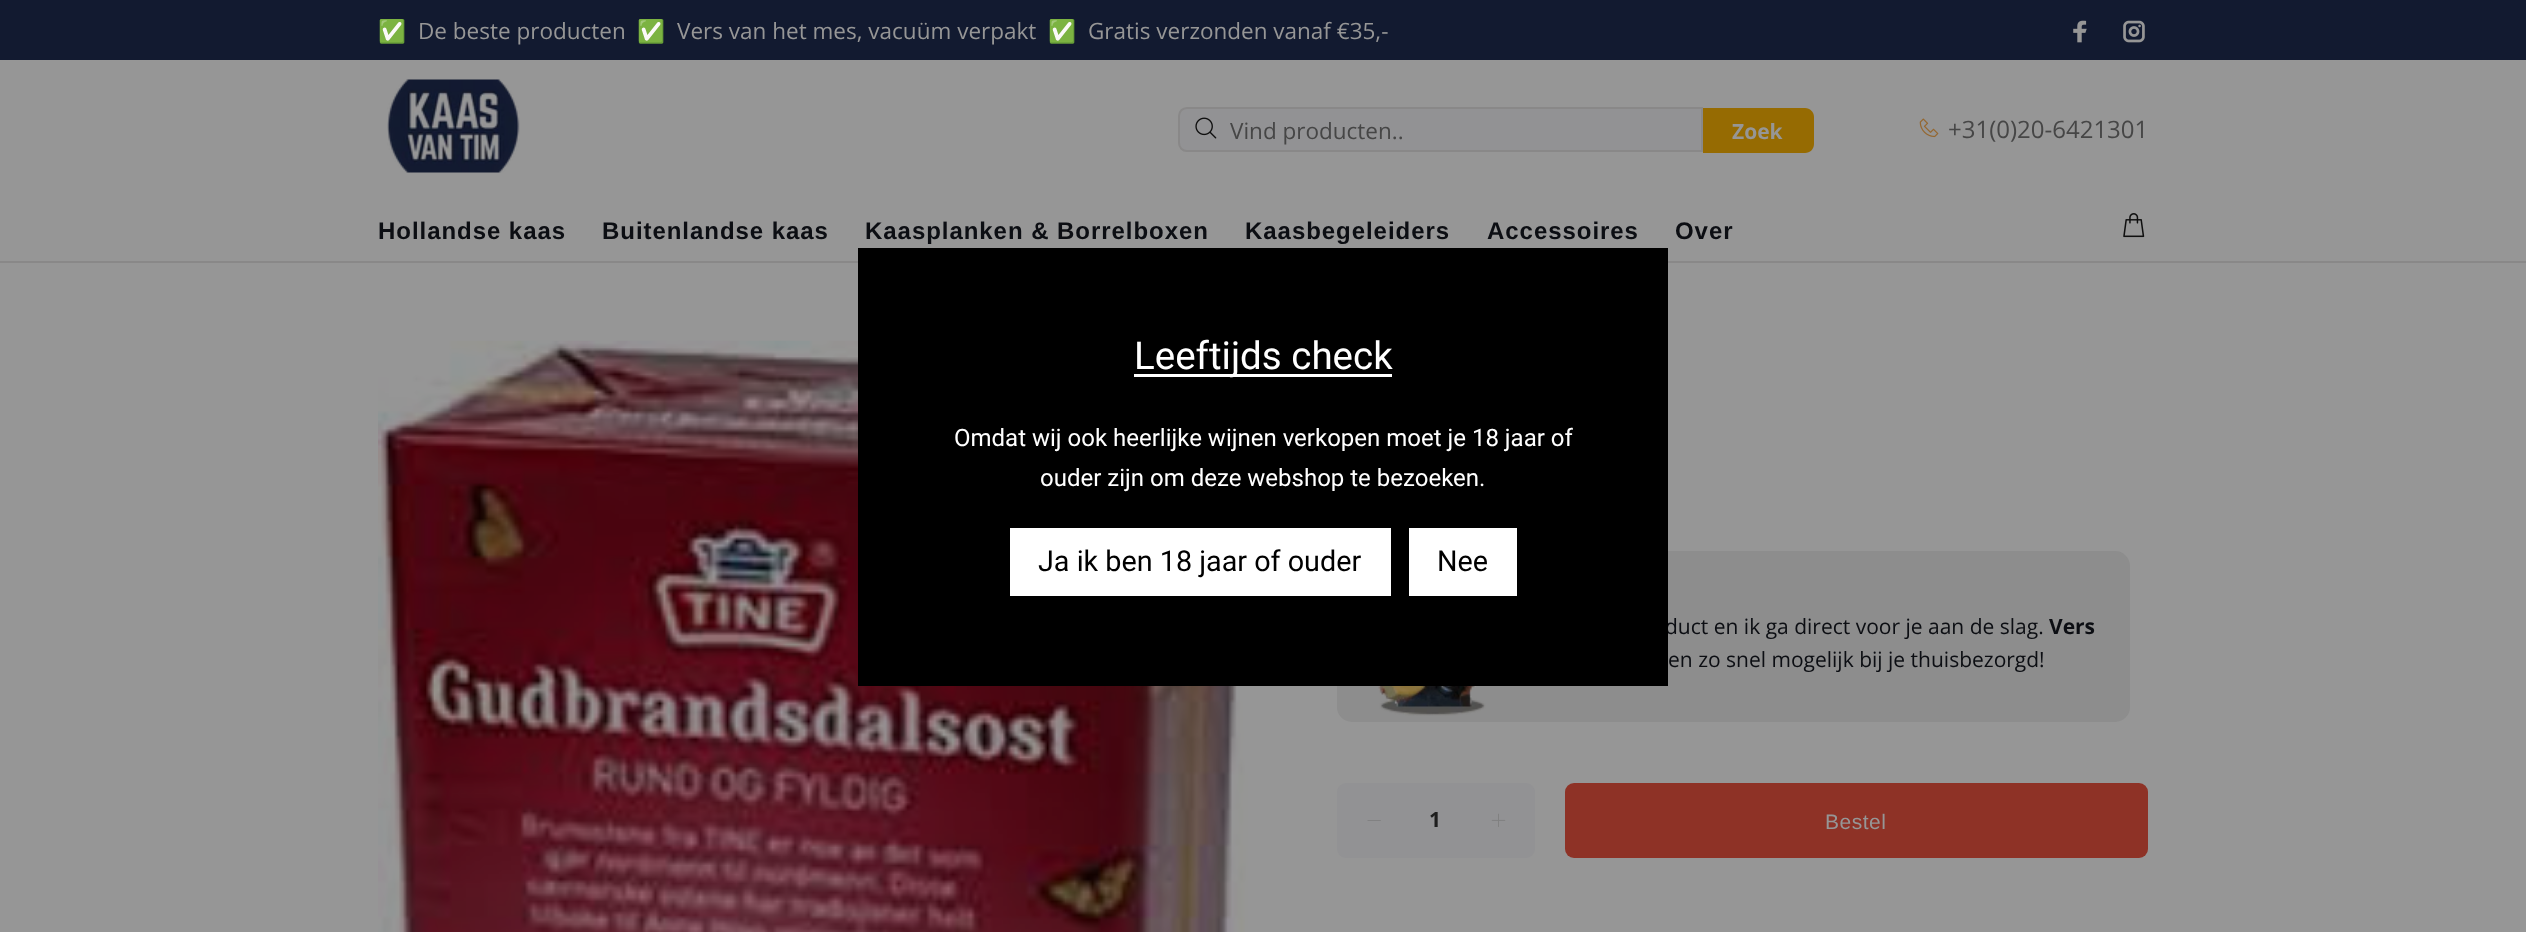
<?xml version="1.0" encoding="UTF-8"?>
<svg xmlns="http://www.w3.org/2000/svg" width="2526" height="932">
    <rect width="100%" height="100%" fill="#969696"/>
    <rect x="0" y="261" width="2526" height="2" fill="#898888"/>
    <rect x="0" y="0" width="2526" height="60" fill="#121A30"/>
    <text x="378" y="39" font-family="Noto Color Emoji" font-size="22.5" fill="#969696">✅</text>
    <text x="418" y="39" font-family="Open Sans" font-size="22.5" fill="#969696">De beste producten</text>
    <text x="637" y="39" font-family="Noto Color Emoji" font-size="22.5" fill="#969696">✅</text>
    <text x="677" y="39" font-family="Open Sans" font-size="22.5" fill="#969696">Vers van het mes, vacuüm verpakt</text>
    <text x="1048" y="39" font-family="Noto Color Emoji" font-size="22.5" fill="#969696">✅</text>
    <text x="1088" y="39" font-family="Open Sans" font-size="22.5" fill="#969696">Gratis verzonden vanaf €35,-</text>
    <image x="2073" y="20" width="14" height="23" href="img_01.png"/>
    <image x="2123" y="20" width="22" height="23" href="img_02.png"/>
    <image x="387" y="79" width="133" height="94" href="img_03.png"/>
    <path d="M 1187 108 H 1702 V 151 H 1187 C 1182.5 151 1179 147.5 1179 143 V 116 C 1179 111.5 1182.5 108 1187 108 Z" fill="#929294" stroke="#898888" stroke-width="2"/>
    <image x="1195" y="117" width="22" height="22" href="img_04.png"/>
    <text x="1230" y="139" font-family="Open Sans" font-size="22.5" fill="#464646">Vind producten..</text>
    <path d="M 1703 108 H 1805 C 1810 108 1814 112 1814 117 V 144 C 1814 149 1810 153 1805 153 H 1703 Z" fill="#966B02"/>
    <text x="1732" y="139" font-family="Open Sans" font-size="21" font-weight="700" fill="#969696">Zoek</text>
    <image x="1919" y="118" width="20" height="20" href="img_05.png"/>
    <text x="1948" y="138" font-family="Open Sans" font-size="24" fill="#464646">+31(0)20-6421301</text>
    <text x="378" y="239" font-family="Liberation Sans" font-size="24" font-weight="700" letter-spacing="0.95" fill="#0C0E13">Hollandse kaas</text>
    <text x="602" y="239" font-family="Liberation Sans" font-size="24" font-weight="700" letter-spacing="0.95" fill="#0C0E13">Buitenlandse kaas</text>
    <text x="865" y="239" font-family="Liberation Sans" font-size="24" font-weight="700" letter-spacing="0.95" fill="#0C0E13">Kaasplanken &amp; Borrelboxen</text>
    <text x="1245" y="239" font-family="Liberation Sans" font-size="24" font-weight="700" letter-spacing="0.95" fill="#0C0E13">Kaasbegeleiders</text>
    <text x="1487" y="239" font-family="Liberation Sans" font-size="24" font-weight="700" letter-spacing="0.95" fill="#0C0E13">Accessoires</text>
    <text x="1675" y="239" font-family="Liberation Sans" font-size="24" font-weight="700" letter-spacing="0.95" fill="#0C0E13">Over</text>
    <image x="2123" y="213" width="22" height="25" href="img_06.png"/>
    <image x="378" y="340" width="870" height="592" href="img_07.png"/>
    <rect x="1337" y="551" width="793" height="171" rx="15" fill="#8D8D8D"/>
    <text x="1665" y="634" font-family="Open Sans" font-size="21" fill="#0C0E13">duct en ik ga direct voor je aan de slag.</text>
    <rect x="858" y="248" width="810" height="438" fill="#000000"/>
    <rect x="1134" y="374" width="258" height="3" fill="#FFFFFF"/>
    <text x="1134" y="369" font-family="Roboto" font-size="38.5" fill="#FFFFFF">Leeftijds check</text>
    <text x="954" y="446" font-family="Roboto" font-size="24" fill="#FFFFFF">Omdat wij ook heerlijke wijnen verkopen moet je 18 jaar of</text>
    <text x="1040" y="486" font-family="Roboto" font-size="24" fill="#FFFFFF">ouder zijn om deze webshop te bezoeken.</text>
    <rect x="1010" y="528" width="381" height="68" fill="#FFFFFF"/>
    <text x="1038" y="571" font-family="Roboto" font-size="28.75" fill="#000000">Ja ik ben 18 jaar of ouder</text>
    <rect x="1409" y="528" width="108" height="68" fill="#FFFFFF"/>
    <text x="1437" y="571" font-family="Roboto" font-size="28.75" fill="#000000">Nee</text>
    <text x="2049" y="634" font-family="Open Sans" font-size="21" font-weight="700" fill="#0C0E13">Vers</text>
    <text x="1668" y="667" font-family="Open Sans" font-size="21" fill="#0C0E13">en zo snel mogelijk bij je thuisbezorgd!</text>
    <image x="1378" y="686" width="108" height="30" href="img_08.png"/>
    <rect x="1337" y="783" width="198" height="75" rx="9" fill="#929294"/>
    <image x="1367" y="820" width="14" height="1" href="img_09.png"/>
    <text x="1429" y="827" font-family="Open Sans" font-size="21" font-weight="700" fill="#1E1E1E">1</text>
    <image x="1491" y="813" width="15" height="14" href="img_10.png"/>
    <rect x="1565" y="783" width="583" height="75" rx="9" fill="#8E3226"/>
    <text x="1825" y="829" font-family="Liberation Sans" font-size="21" letter-spacing="0.5" fill="#969696">Bestel</text>
</svg>
